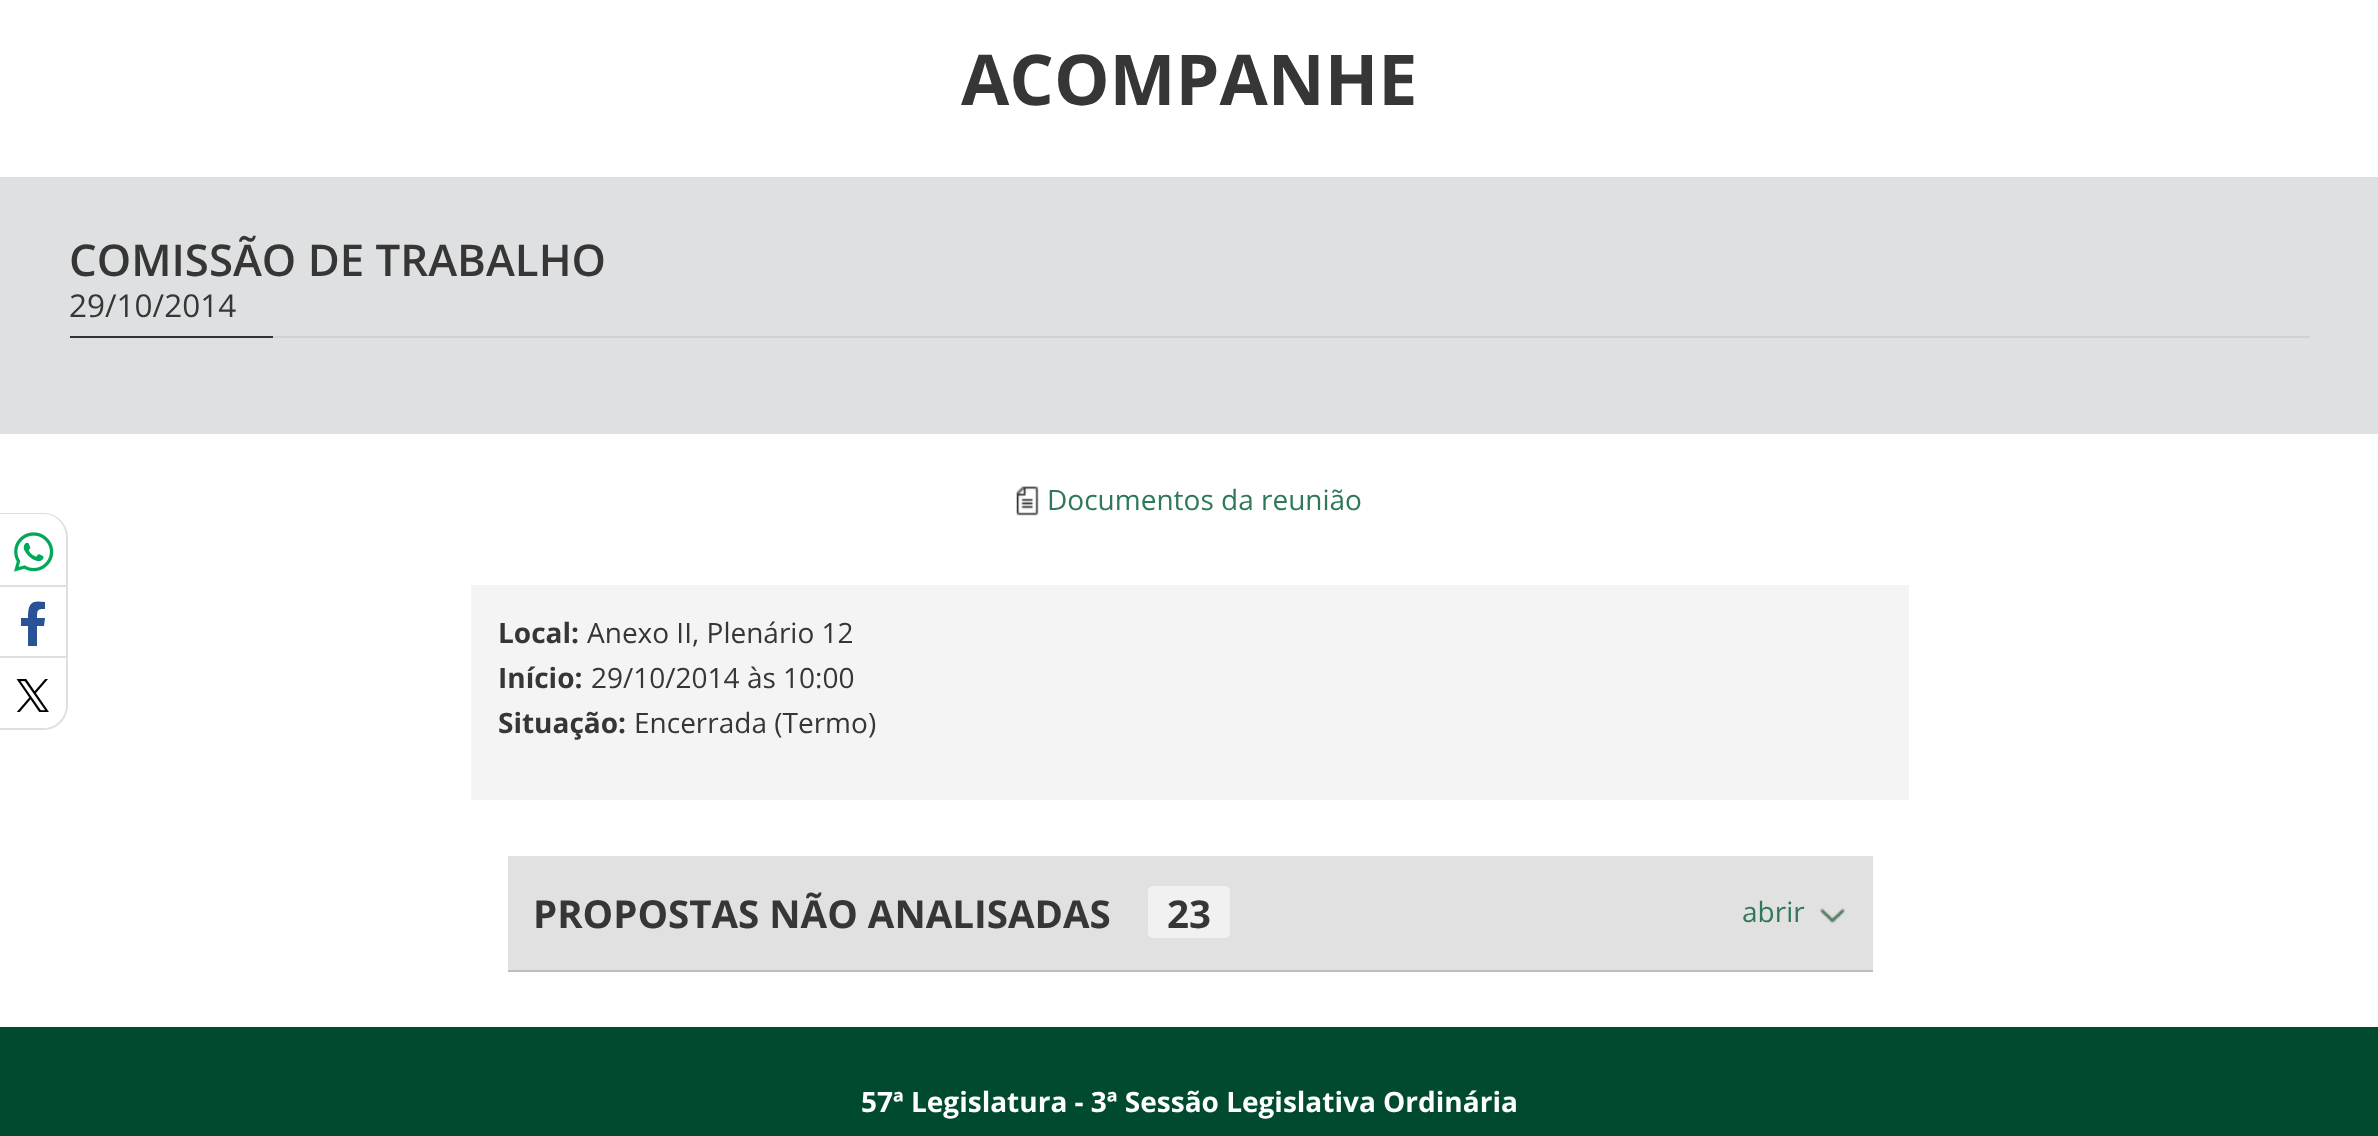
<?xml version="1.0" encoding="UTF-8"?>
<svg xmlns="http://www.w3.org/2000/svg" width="2378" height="1136">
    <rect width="100%" height="100%" fill="#FFFFFF"/>
    <text x="961" y="105" font-family="Open Sans" font-size="70" font-weight="700" fill="#363636">ACOMPANHE</text>
    <rect x="0" y="177" width="2378" height="257" fill="#DFE0E1"/>
    <rect x="273" y="336" width="2037" height="2" fill="#D1D1D1"/>
    <text x="69" y="276" font-family="Open Sans" font-size="43.75" font-weight="600" fill="#363636">COMISSÃO DE TRABALHO</text>
    <text x="69" y="317" font-family="Open Sans" font-size="31.5" fill="#363636">29/10/2014</text>
    <rect x="70" y="336" width="203" height="2" fill="#333333"/>
    <image x="1016" y="486" width="23" height="30" href="img_01.png"/>
    <text x="1047" y="510" font-family="Open Sans" font-size="28" fill="#2F7958">Documentos da reunião</text>
    <path d="M 0 513 H 44 C 57 513 68 524 68 537 V 705 C 68 719 57 730 44 730 H 0 Z M 0 514 H 44 C 56 514 66 525 66 537 V 705 C 66 718 56 728 44 728 H 0 Z" fill="#DFDFDF" fill-rule="evenodd"/>
    <rect x="0" y="585" width="67" height="2" fill="#DFDFDF"/>
    <image x="14" y="532" width="40" height="40" href="img_02.png"/>
    <rect x="0" y="656" width="67" height="2" fill="#DFDFDF"/>
    <path d="M 44 626 H 37 V 646 H 28 V 626 H 21 V 618 H 28 C 28 603 31 600 45 602 V 609 C 37 609 37 610 37 618 H 45 Z" fill="#2A5297"/>
    <image x="16" y="679" width="33" height="33" href="img_03.png"/>
    <rect x="471" y="585" width="1438" height="215" fill="#F4F4F4"/>
    <text x="498" y="643" font-family="Open Sans" font-size="28" font-weight="700" fill="#363636">Local:</text>
    <text x="587" y="643" font-family="Open Sans" font-size="28" fill="#363636">Anexo II, Plenário 12</text>
    <text x="498" y="688" font-family="Open Sans" font-size="28" font-weight="700" fill="#363636">Início:</text>
    <text x="591" y="688" font-family="Open Sans" font-size="28" fill="#363636">29/10/2014 às 10:00</text>
    <text x="498" y="733" font-family="Open Sans" font-size="28" font-weight="700" fill="#363636">Situação:</text>
    <text x="634" y="733" font-family="Open Sans" font-size="28" fill="#363636">Encerrada (Termo)</text>
    <rect x="508" y="856" width="1365" height="114" fill="#E1E1E1"/>
    <rect x="508" y="970" width="1365" height="2" fill="#BDBDBD"/>
    <text x="533" y="928" font-family="Open Sans" font-size="38.5" font-weight="700" fill="#363636">PROPOSTAS NÃO ANALISADAS</text>
    <rect x="1148" y="886" width="82" height="52" rx="5" fill="#F1F1F1"/>
    <text x="1167" y="928" font-family="Open Sans" font-size="38.5" font-weight="700" fill="#363636">23</text>
    <text x="1742" y="922" font-family="Open Sans" font-size="28" fill="#2F7958">abrir</text>
    <image x="1820" y="908" width="25" height="15" href="img_04.png"/>
    <rect x="0" y="1027" width="2378" height="109" fill="#004A2F"/>
    <text x="861" y="1112" font-family="Open Sans" font-size="28" font-weight="700" fill="#FFFFFF">57ª Legislatura - 3ª Sessão Legislativa Ordinária</text>
</svg>
